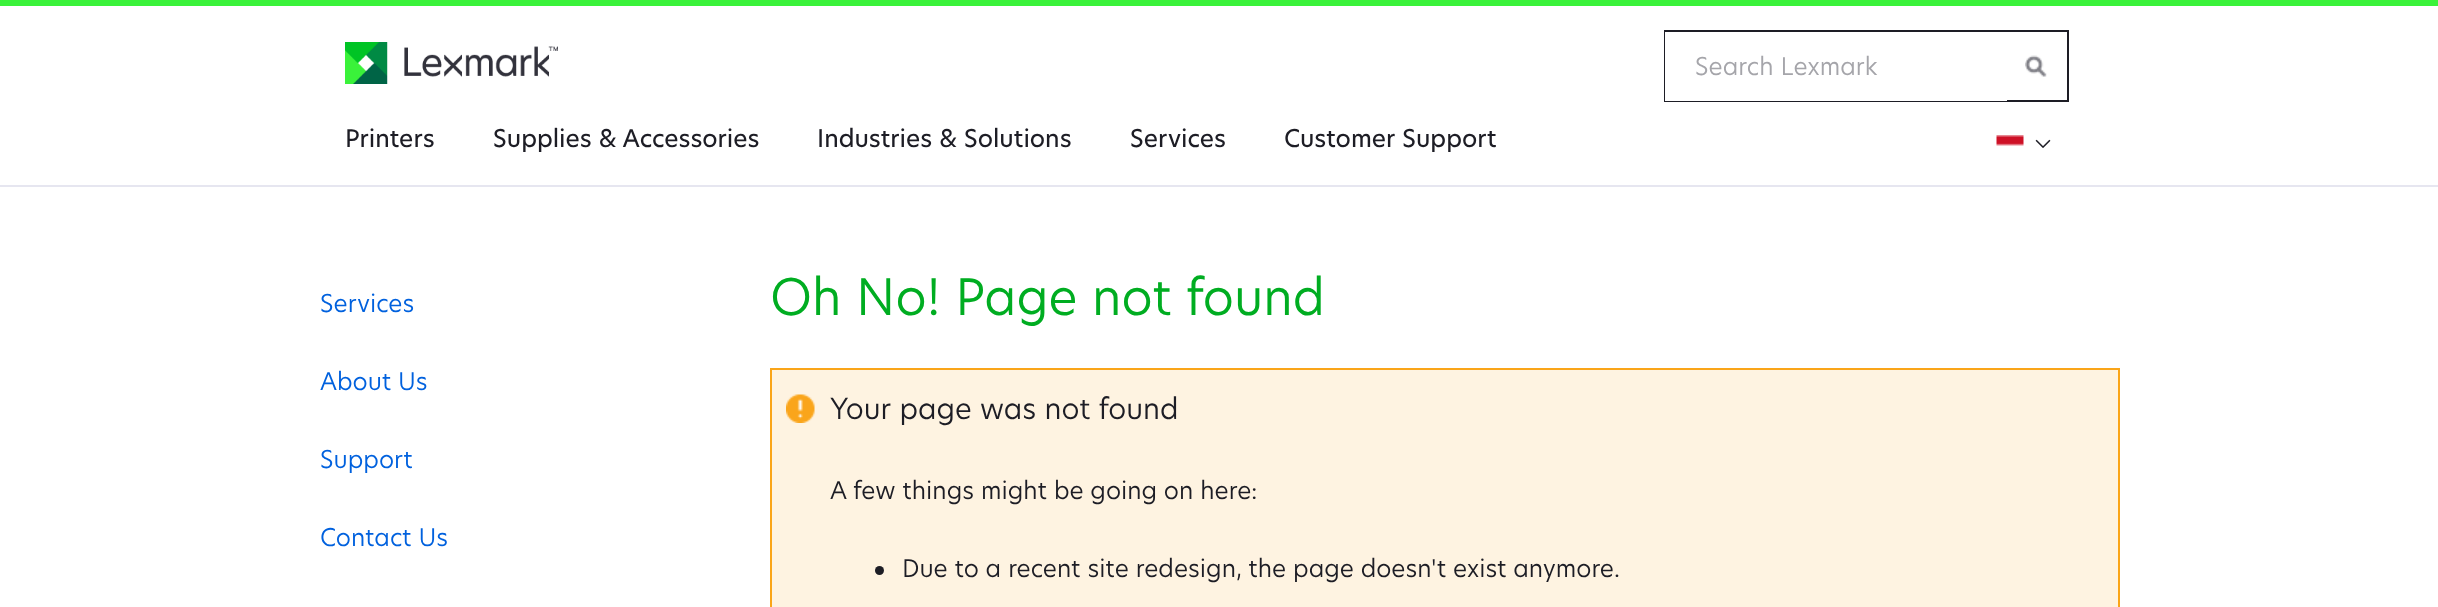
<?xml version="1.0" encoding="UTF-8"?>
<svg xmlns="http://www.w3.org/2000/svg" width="2438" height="607">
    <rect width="100%" height="100%" fill="#FFFFFF"/>
    <rect x="0" y="0" width="2438" height="6" fill="#3AF23A"/>
    <rect x="0" y="185" width="2438" height="2" fill="#E6E6F0"/>
    <image x="345" y="42" width="213" height="42" href="img_01.png"/>
    <rect x="1665" y="31" width="403" height="70" fill="none" stroke="#1D1D25" stroke-width="2"/>
    <rect x="1665" y="32" width="342" height="69" fill="#FFFFFF"/>
    <text x="1695" y="75" font-family="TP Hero" font-size="24" fill="#A5A5AA">Search Lexmark</text>
    <image x="2025" y="55" width="22" height="22" href="img_02.png"/>
    <text x="345" y="147" font-family="TP Hero" font-size="24" font-weight="500" fill="#1D1D25">Printers</text>
    <text x="493" y="147" font-family="TP Hero" font-size="24" font-weight="500" fill="#1D1D25">Supplies &amp; Accessories</text>
    <text x="817" y="147" font-family="TP Hero" font-size="24" font-weight="500" fill="#1D1D25">Industries &amp; Solutions</text>
    <text x="1130" y="147" font-family="TP Hero" font-size="24" font-weight="500" fill="#1D1D25">Services</text>
    <text x="1284" y="147" font-family="TP Hero" font-size="24" font-weight="500" fill="#1D1D25">Customer Support</text>
    <image x="1996" y="135" width="28" height="11" href="img_03.png"/>
    <image x="2035" y="139" width="16" height="9" href="img_04.png"/>
    <text x="320" y="312" font-family="TP Hero" font-size="24" fill="#0061DE">Services</text>
    <text x="320" y="390" font-family="TP Hero" font-size="24" fill="#0061DE">About Us</text>
    <text x="320" y="468" font-family="TP Hero" font-size="24" fill="#0061DE">Support</text>
    <text x="320" y="546" font-family="TP Hero" font-size="24" fill="#0061DE">Contact Us</text>
    <text x="770" y="315" font-family="TP Hero" font-size="49.5" fill="#00AD21">Oh No! Page not found</text>
    <rect x="771" y="369" width="1348" height="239" fill="#FEF3E1" stroke="#FAA519" stroke-width="2"/>
    <image x="786" y="394" width="29" height="29" href="img_05.png"/>
    <text x="830" y="419" font-family="TP Hero" font-size="28.5" fill="#1D1D25">Your page was not found</text>
    <text x="830" y="499" font-family="TP Hero" font-size="24" fill="#1D1D25">A few things might be going on here:</text>
    <circle cx="879.5" cy="570.5" r="4.5" fill="#1D1D25"/>
    <text x="902" y="577" font-family="TP Hero" font-size="24" fill="#1D1D25">Due to a recent site redesign, the page doesn't exist anymore.</text>
</svg>
